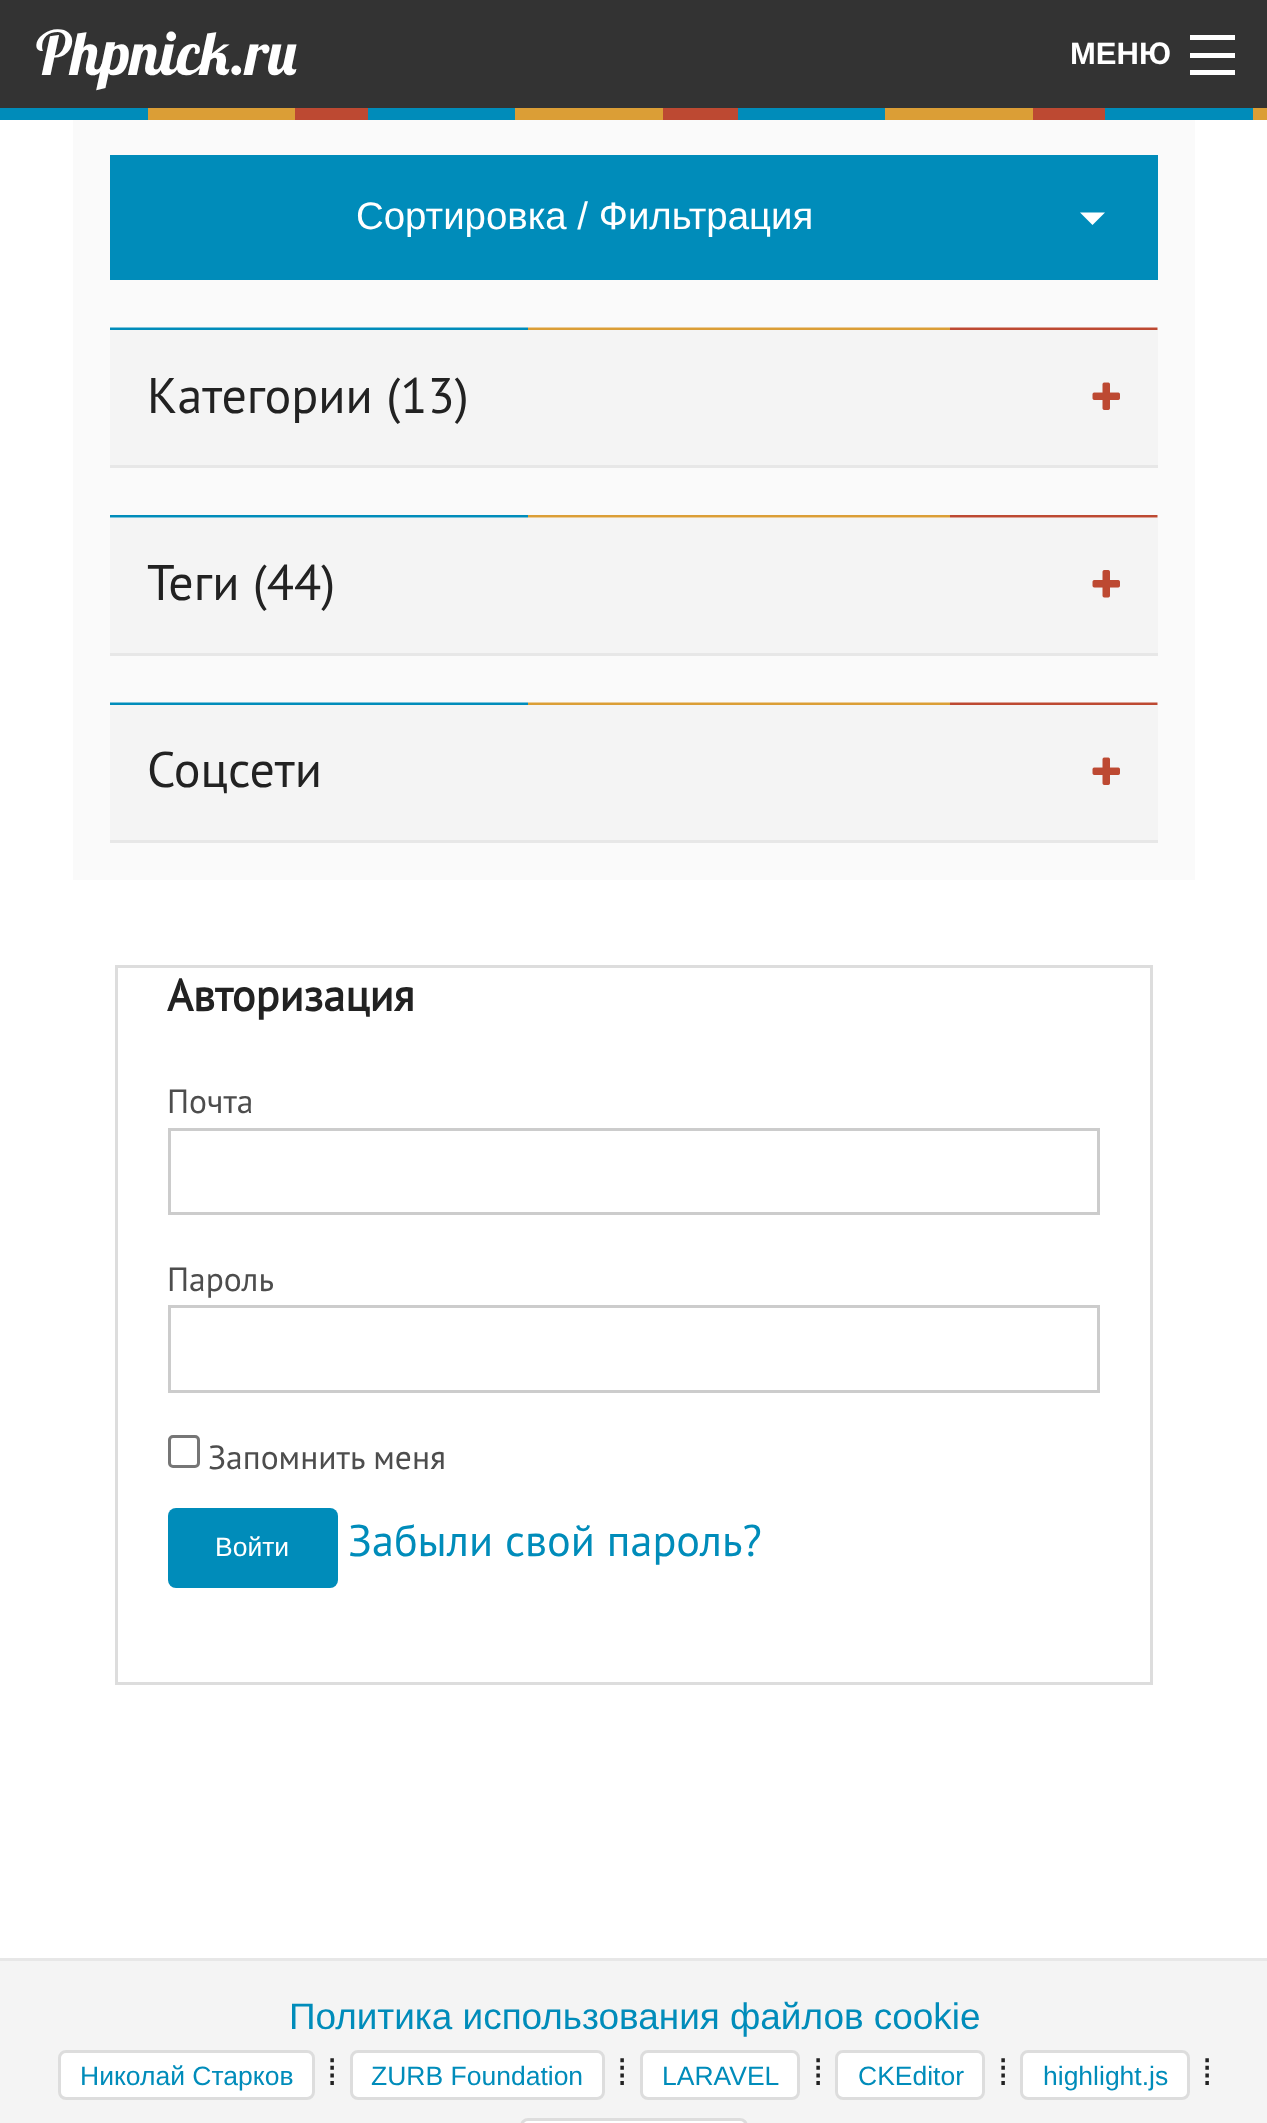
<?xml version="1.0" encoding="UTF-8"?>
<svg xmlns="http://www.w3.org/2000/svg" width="1267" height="2123">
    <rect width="100%" height="100%" fill="#FFFFFF"/>
    <rect x="0" y="0" width="1267" height="108" fill="#333333"/>
    <text x="36" y="75" font-family="'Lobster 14'" font-size="61" fill="#FFFFFF">Phpnick.ru</text>
    <text x="1070" y="64" font-family="Liberation Sans" font-size="31" font-weight="700" fill="#FFFFFF">МЕНЮ</text>
    <rect x="1190" y="70" width="45" height="5" fill="#FFFFFF"/>
    <rect x="1190" y="53" width="45" height="5" fill="#FFFFFF"/>
    <rect x="1190" y="35" width="45" height="5" fill="#FFFFFF"/>
    <rect x="0" y="108" width="148" height="12" fill="#008CBA"/>
    <rect x="148" y="108" width="147" height="12" fill="#DB9E36"/>
    <rect x="295" y="108" width="73" height="12" fill="#BD4932"/>
    <rect x="368" y="108" width="147" height="12" fill="#008CBA"/>
    <rect x="515" y="108" width="148" height="12" fill="#DB9E36"/>
    <rect x="663" y="108" width="75" height="12" fill="#BD4932"/>
    <rect x="738" y="108" width="147" height="12" fill="#008CBA"/>
    <rect x="885" y="108" width="148" height="12" fill="#DB9E36"/>
    <rect x="1033" y="108" width="72" height="12" fill="#BD4932"/>
    <rect x="1105" y="108" width="148" height="12" fill="#008CBA"/>
    <rect x="1253" y="108" width="14" height="12" fill="#DB9E36"/>
    <rect x="73" y="120" width="1122" height="760" fill="#FAFAFA"/>
    <rect x="110" y="155" width="1048" height="125" fill="#008CBA"/>
    <text x="356" y="229" font-family="Liberation Sans" font-size="38.4" fill="#FFFFFF">Сортировка / Фильтрация</text>
    <path d="M 1080 212.5 H 1105 L 1092.5 225 Z" fill="#FFFFFF"/>
    <image x="110" y="327" width="1048" height="3" href="img_01.png"/>
    <rect x="110" y="330" width="1048" height="135" fill="#F4F4F4"/>
    <rect x="110" y="465" width="1048" height="3" fill="#E7E7E7"/>
    <text x="147" y="413" font-family="PT Sans" font-size="50" fill="#222222">Категории (13)</text>
    <image x="1092" y="382" width="28" height="28" href="img_02.png"/>
    <image x="110" y="515" width="1048" height="3" href="img_03.png"/>
    <rect x="110" y="518" width="1048" height="135" fill="#F4F4F4"/>
    <rect x="110" y="653" width="1048" height="3" fill="#E7E7E7"/>
    <text x="147" y="600" font-family="PT Sans" font-size="50" fill="#222222">Теги (44)</text>
    <image x="1092" y="570" width="28" height="28" href="img_04.png"/>
    <image x="110" y="702" width="1048" height="3" href="img_05.png"/>
    <rect x="110" y="705" width="1048" height="135" fill="#F4F4F4"/>
    <rect x="110" y="840" width="1048" height="3" fill="#E7E7E7"/>
    <text x="147" y="787" font-family="PT Sans" font-size="50" fill="#222222">Соцсети</text>
    <image x="1092" y="757" width="28" height="28" href="img_02.png"/>
    <rect x="116.5" y="966.5" width="1035" height="717" fill="none" stroke="#DDDDDD" stroke-width="3"/>
    <text x="167" y="1011" font-family="PT Sans" font-size="44.25" font-weight="700" fill="#222222">Авторизация</text>
    <text x="167" y="1113" font-family="PT Sans" font-size="33.5" fill="#4D4D4D">Почта</text>
    <rect x="169.5" y="1129.5" width="929" height="84" fill="none" stroke="#CCCCCC" stroke-width="3"/>
    <text x="167" y="1291" font-family="PT Sans" font-size="33.5" fill="#4D4D4D">Пароль</text>
    <rect x="169.5" y="1306.5" width="929" height="85" fill="none" stroke="#CCCCCC" stroke-width="3"/>
    <rect x="169.5" y="1436.5" width="29" height="30" rx="3.5" fill="none" stroke="#767676" stroke-width="3"/>
    <text x="208" y="1469" font-family="PT Sans" font-size="33.5" fill="#4D4D4D">Запомнить меня</text>
    <rect x="168" y="1508" width="170" height="80" rx="8" fill="#008CBA"/>
    <text x="215" y="1556" font-family="Liberation Sans" font-size="26.5" fill="#FFFFFF">Войти</text>
    <text x="348" y="1556" font-family="PT Sans" font-size="44.25" fill="#008CBA">Забыли свой пароль?</text>
    <rect x="0" y="1961" width="1267" height="162" fill="#F4F4F4"/>
    <rect x="0" y="1958" width="1267" height="3" fill="#E7E7E7"/>
    <text x="289" y="2029" font-family="Liberation Sans" font-size="36.9" fill="#008CBA">Политика использования файлов cookie</text>
    <rect x="59.5" y="2051.5" width="254" height="47" rx="6.5" fill="#FFFFFF" stroke="#DDDDDD" stroke-width="3"/>
    <text x="80" y="2085" font-family="Liberation Sans" font-size="26.5" fill="#008CBA">Николай Старков</text>
    <text x="327" y="2085" font-family="Liberation Sans" font-size="36.9" fill="#222222">⁞</text>
    <rect x="351.5" y="2051.5" width="252" height="47" rx="6.5" fill="#FFFFFF" stroke="#DDDDDD" stroke-width="3"/>
    <text x="371" y="2085" font-family="Liberation Sans" font-size="26.5" fill="#008CBA">ZURB Foundation</text>
    <text x="617" y="2085" font-family="Liberation Sans" font-size="36.9" fill="#222222">⁞</text>
    <rect x="641.5" y="2051.5" width="157" height="47" rx="6.5" fill="#FFFFFF" stroke="#DDDDDD" stroke-width="3"/>
    <text x="662" y="2085" font-family="Liberation Sans" font-size="26.5" fill="#008CBA">LARAVEL</text>
    <text x="813" y="2085" font-family="Liberation Sans" font-size="36.9" fill="#222222">⁞</text>
    <rect x="836.5" y="2051.5" width="147" height="47" rx="6.5" fill="#FFFFFF" stroke="#DDDDDD" stroke-width="3"/>
    <text x="858" y="2085" font-family="Liberation Sans" font-size="26.5" fill="#008CBA">CKEditor</text>
    <text x="998" y="2085" font-family="Liberation Sans" font-size="36.9" fill="#222222">⁞</text>
    <rect x="1021.5" y="2051.5" width="167" height="47" rx="6.5" fill="#FFFFFF" stroke="#DDDDDD" stroke-width="3"/>
    <text x="1043" y="2085" font-family="Liberation Sans" font-size="26.5" fill="#008CBA">highlight.js</text>
    <text x="1202" y="2085" font-family="Liberation Sans" font-size="36.9" fill="#222222">⁞</text>
    <rect x="521.5" y="2119.5" width="225" height="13" rx="6.5" fill="#FFFFFF" stroke="#DDDDDD" stroke-width="3"/>
</svg>
